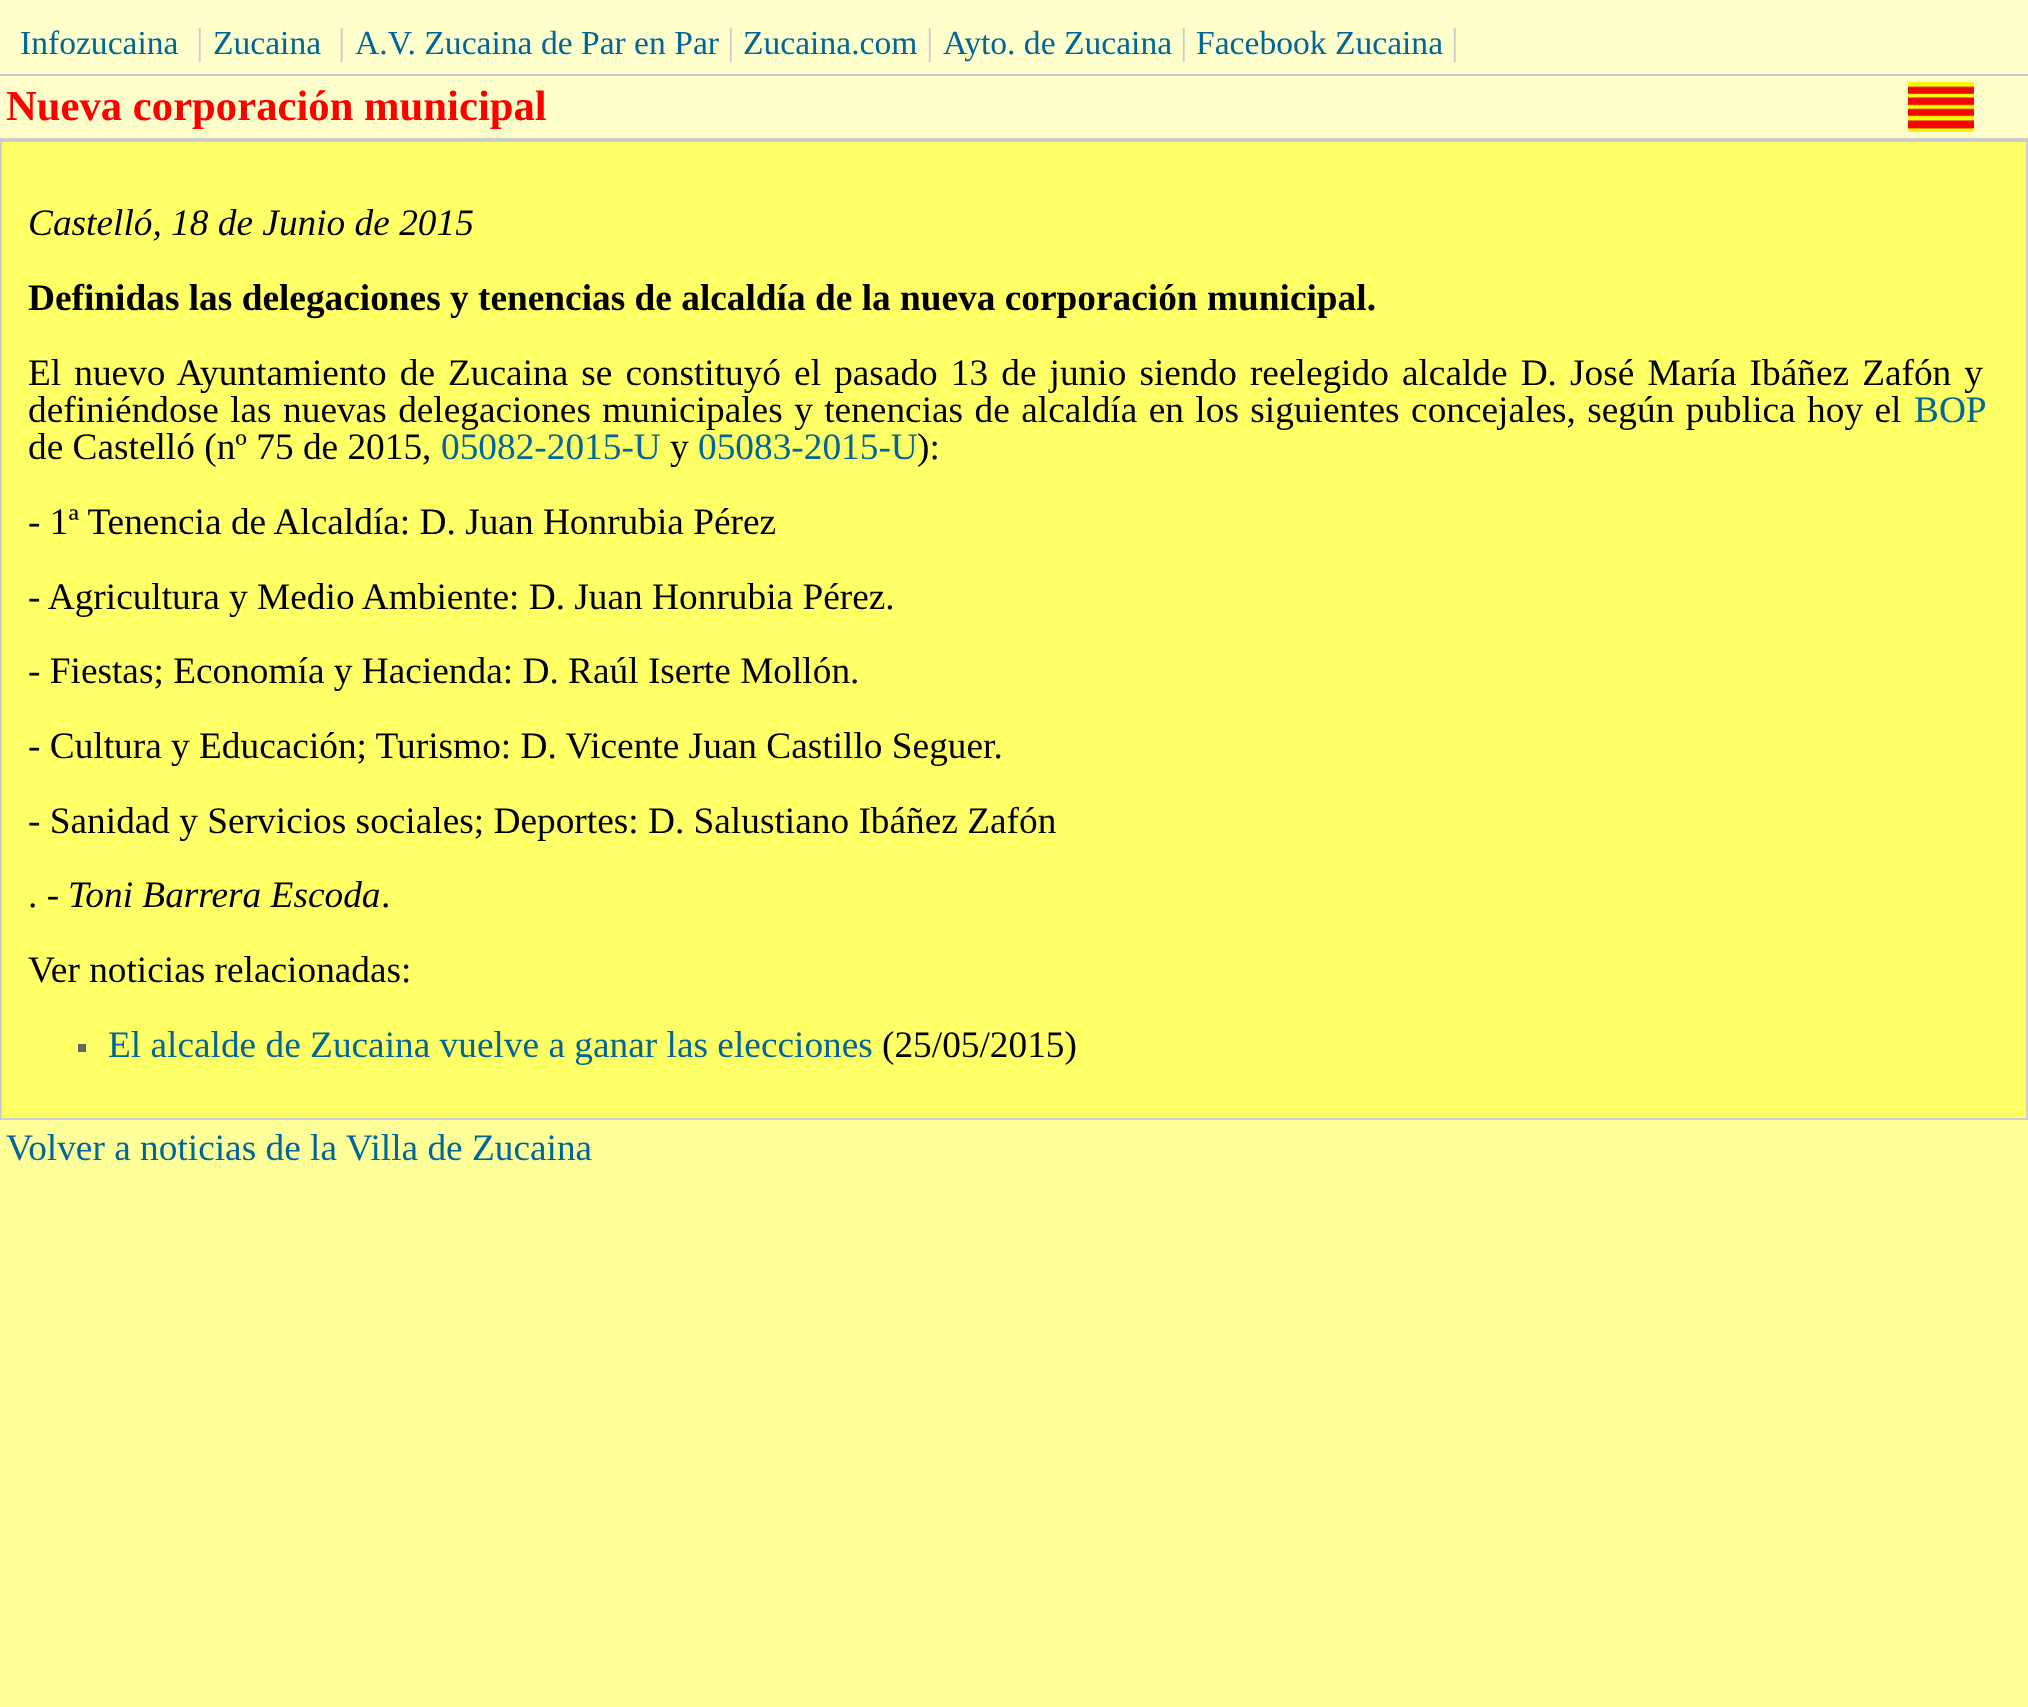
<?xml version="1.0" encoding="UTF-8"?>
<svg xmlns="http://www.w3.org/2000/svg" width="2028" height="1707">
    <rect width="100%" height="100%" fill="#FFFF99"/>
    <rect x="0" y="0" width="2028" height="138" fill="#FFFFCC"/>
    <rect x="0" y="138" width="2028" height="2" fill="#CCCCCC"/>
    <rect x="0" y="74" width="2028" height="2" fill="#CCCCCC"/>
    <text x="20" y="54" font-family="Liberation Serif" font-size="33.6" fill="#006699">Infozucaina</text>
    <text x="196" y="54" font-family="Liberation Serif" font-size="37.33" fill="#CCCCCC">|</text>
    <text x="213" y="54" font-family="Liberation Serif" font-size="33.6" fill="#006699">Zucaina</text>
    <text x="338" y="54" font-family="Liberation Serif" font-size="37.33" fill="#CCCCCC">|</text>
    <text x="355" y="54" font-family="Liberation Serif" font-size="33.6" fill="#006699">A.V. Zucaina de Par en Par</text>
    <text x="727" y="54" font-family="Liberation Serif" font-size="37.33" fill="#CCCCCC">|</text>
    <text x="743" y="54" font-family="Liberation Serif" font-size="33.6" fill="#006699">Zucaina.com</text>
    <text x="926" y="54" font-family="Liberation Serif" font-size="37.33" fill="#CCCCCC">|</text>
    <text x="943" y="54" font-family="Liberation Serif" font-size="33.6" fill="#006699">Ayto. de Zucaina</text>
    <text x="1180" y="54" font-family="Liberation Serif" font-size="37.33" fill="#CCCCCC">|</text>
    <text x="1196" y="54" font-family="Liberation Serif" font-size="33.6" fill="#006699">Facebook Zucaina</text>
    <text x="1451" y="54" font-family="Liberation Serif" font-size="37.33" fill="#CCCCCC">|</text>
    <text x="6" y="120" font-family="Liberation Serif" font-size="42.7" font-weight="700" fill="#FF0000">Nueva corporación municipal</text>
    <image x="1908" y="82" width="66" height="50" href="img_01.png"/>
    <rect x="1" y="141" width="2026" height="978" fill="#FFFF66" stroke="#CCCCCC" stroke-width="2"/>
    <text x="28" y="235" font-family="Liberation Serif" font-size="37.33" font-style="italic" fill="#000000">Castelló, 18 de Junio de 2015</text>
    <text x="28" y="310" font-family="Liberation Serif" font-size="37.33" font-weight="700" fill="#000000">Definidas las delegaciones y tenencias de alcaldía de la nueva corporación municipal.</text>
    <text font-family="Liberation Serif" font-size="37.33" fill="#000000">
        <tspan x="28" y="385" word-spacing="3.75">El nuevo Ayuntamiento de Zucaina se constituyó el pasado 13 de junio siendo reelegido alcalde D. José María Ibáñez Zafón y</tspan>
        <tspan x="28" y="422" word-spacing="2.1">definiéndose las nuevas delegaciones municipales y tenencias de alcaldía en los siguientes concejales, según publica hoy el</tspan>
    </text>
    <text x="1914" y="422" font-family="Liberation Serif" font-size="37.33" fill="#006699">BOP</text>
    <text x="28" y="459" font-family="Liberation Serif" font-size="37.33" fill="#000000">de Castelló (nº 75 de 2015,</text>
    <text x="441" y="459" font-family="Liberation Serif" font-size="37.33" fill="#006699">05082-2015-U</text>
    <text x="670" y="459" font-family="Liberation Serif" font-size="37.33" fill="#000000">y</text>
    <text x="698" y="459" font-family="Liberation Serif" font-size="37.33" fill="#006699">05083-2015-U</text>
    <text x="917" y="459" font-family="Liberation Serif" font-size="37.33" fill="#000000">):</text>
    <text x="28" y="534" font-family="Liberation Serif" font-size="37.33" fill="#000000">- 1ª Tenencia de Alcaldía: D. Juan Honrubia Pérez</text>
    <text font-family="Liberation Serif" font-size="37.33" fill="#000000">
        <tspan x="28" y="609">- Agricultura y Medio Ambiente: D. Juan Honrubia Pérez.</tspan>
        <tspan x="28" y="683">- Fiestas; Economía y Hacienda: D. Raúl Iserte Mollón.</tspan>
    </text>
    <text x="28" y="758" font-family="Liberation Serif" font-size="37.33" fill="#000000">- Cultura y Educación; Turismo: D. Vicente Juan Castillo Seguer.</text>
    <text font-family="Liberation Serif" font-size="37.33" fill="#000000">
        <tspan x="28" y="833">- Sanidad y Servicios sociales; Deportes: D. Salustiano Ibáñez Zafón</tspan>
        <tspan x="28" y="907">. -</tspan>
    </text>
    <text x="68" y="907" font-family="Liberation Serif" font-size="37.33" font-style="italic" fill="#000000">Toni Barrera Escoda</text>
    <text x="381" y="907" font-family="Liberation Serif" font-size="37.33" fill="#000000">.</text>
    <text x="28" y="982" font-family="Liberation Serif" font-size="37.33" fill="#000000">Ver noticias relacionadas:</text>
    <rect x="78" y="1044" width="8" height="8" fill="#666666"/>
    <text x="108" y="1057" font-family="Liberation Serif" font-size="37.33" fill="#006699">El alcalde de Zucaina vuelve a ganar las elecciones</text>
    <text x="882" y="1057" font-family="Liberation Serif" font-size="37.33" fill="#000000">(25/05/2015)</text>
    <text x="6" y="1160" font-family="Liberation Serif" font-size="37.33" fill="#006699">Volver a noticias de la Villa de Zucaina</text>
</svg>
